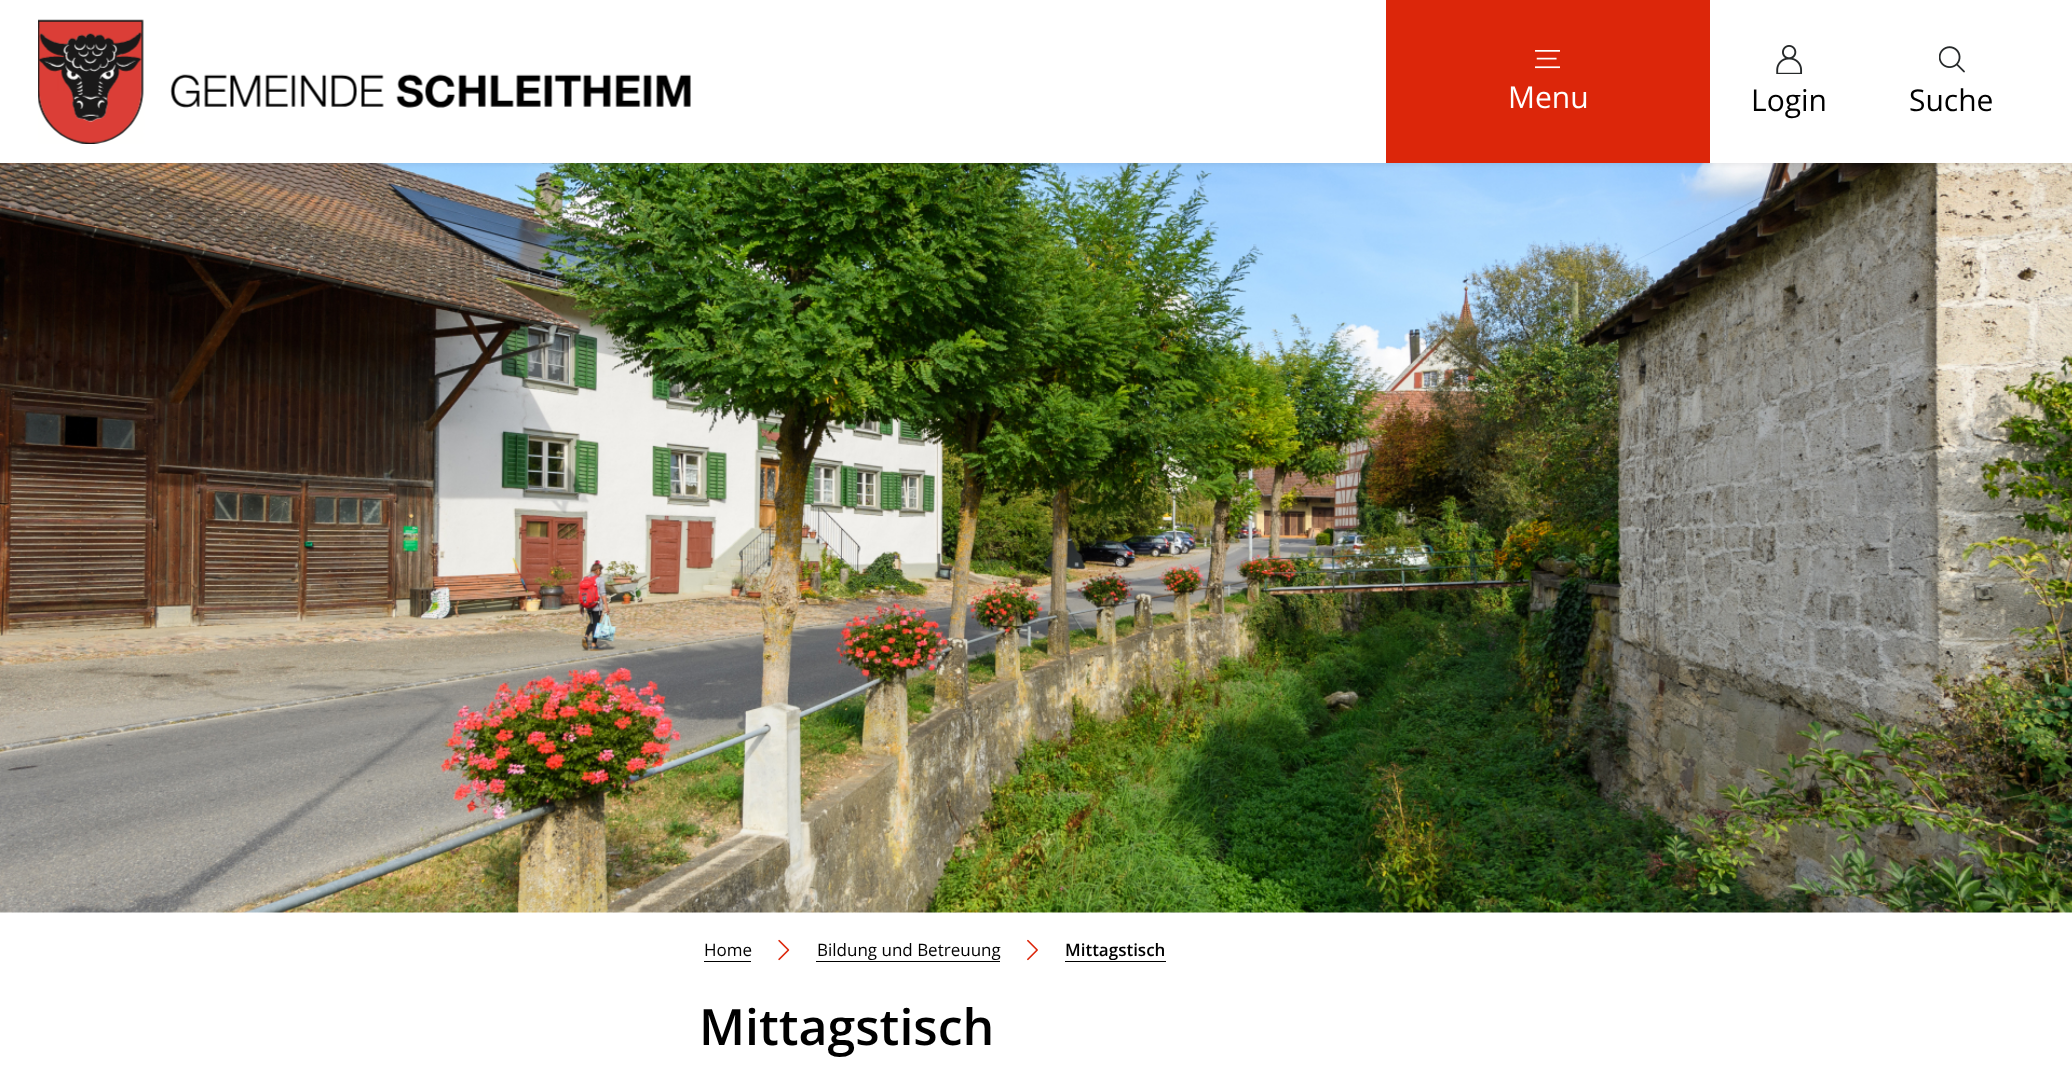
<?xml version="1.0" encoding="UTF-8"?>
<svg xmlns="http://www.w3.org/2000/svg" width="2072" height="1081">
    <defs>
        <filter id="blur1" x="-50%" y="-200%" width="200%" height="500%"><feGaussianBlur stdDeviation="2.5"/></filter>
    </defs>
    <rect width="100%" height="100%" fill="#FFFFFF"/>
    <image x="0" y="163" width="2072" height="750" href="img_05.png"/>
    <rect x="0" y="3" width="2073" height="162" fill="#000000" fill-opacity="0.07" filter="url(#blur1)"/>
    <rect x="0" y="0" width="2072" height="163" fill="#FFFFFF"/>
    <image x="38" y="19" width="653" height="125" href="img_01.png"/>
    <rect x="1386" y="0" width="324" height="163" fill="#DC260A"/>
    <image x="1535" y="50" width="25" height="19" href="img_02.png"/>
    <text x="1508" y="108" font-family="Open Sans" font-size="30" fill="#FFFFFF">Menu</text>
    <image x="1776" y="45" width="27" height="29" href="img_03.png"/>
    <text x="1751" y="111" font-family="Open Sans" font-size="30" fill="#000000">Login</text>
    <image x="1939" y="46" width="26" height="27" href="img_04.png"/>
    <text x="1909" y="111" font-family="Open Sans" font-size="30" fill="#000000">Suche</text>
    <text x="704" y="956" font-family="Open Sans" font-size="17" fill="#000000">Home</text>
    <rect x="704" y="961" width="47" height="1" fill="#000000"/>
    <image x="778" y="939" width="12" height="22" href="img_06.png"/>
    <text x="817" y="956" font-family="Open Sans" font-size="17" fill="#000000">Bildung und Betreuung</text>
    <rect x="816" y="961" width="184" height="1" fill="#000000"/>
    <image x="1027" y="939" width="11" height="22" href="img_07.png"/>
    <text x="1065" y="956" font-family="Open Sans" font-size="17" font-weight="600" fill="#000000">Mittagstisch</text>
    <rect x="1065" y="961" width="101" height="1" fill="#000000"/>
    <text x="699" y="1045" font-family="Open Sans" font-size="50" font-weight="600" fill="#000000">Mittagstisch</text>
</svg>
